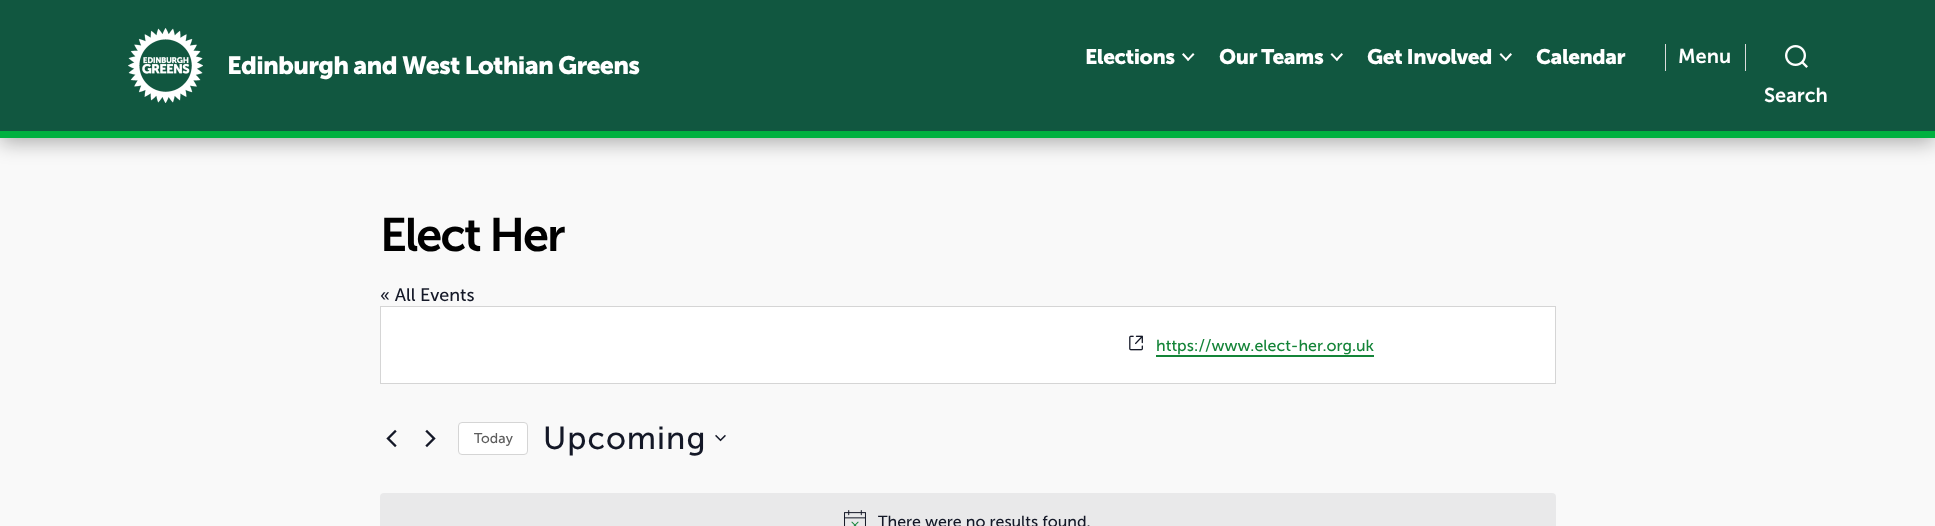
<?xml version="1.0" encoding="UTF-8"?>
<svg xmlns="http://www.w3.org/2000/svg" width="1935" height="526">
    <defs>
        <filter id="blur1" x="-50%" y="-200%" width="200%" height="500%"><feGaussianBlur stdDeviation="10"/></filter>
    </defs>
    <rect width="100%" height="100%" fill="#F9F9F9"/>
    <rect x="0" y="5" width="1935" height="138" fill="#000000" fill-opacity="0.3" filter="url(#blur1)"/>
    <rect x="0" y="0" width="1935" height="131" fill="#115740"/>
    <rect x="0" y="131" width="1935" height="7" fill="#00B140"/>
    <image x="128" y="28" width="75" height="75" href="img_01.png"/>
    <text x="227" y="74" font-family="'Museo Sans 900'" font-size="25" font-weight="700" letter-spacing="-0.75" fill="#FFFFFF">Edinburgh and West Lothian Greens</text>
    <text x="1085" y="64" font-family="'Museo Sans 900'" font-size="21" font-weight="700" letter-spacing="-0.5" fill="#FFFFFF">Elections</text>
    <path d="M 1182 54.5 L 1183.5 53 L 1189.5 59.5 L 1188 61 Z" fill="#FFFFFF"/>
    <path d="M 1187 59.5 L 1193 53 L 1194.5 54.5 L 1188 61 Z" fill="#FFFFFF"/>
    <text x="1219" y="64" font-family="'Museo Sans 900'" font-size="21" font-weight="700" letter-spacing="-0.5" fill="#FFFFFF">Our Teams</text>
    <path d="M 1330.5 54.5 L 1332 53 L 1338 59.5 L 1337 61 Z" fill="#FFFFFF"/>
    <path d="M 1335.5 59.5 L 1341.5 53 L 1343 54.5 L 1337 61 Z" fill="#FFFFFF"/>
    <text x="1367" y="64" font-family="'Museo Sans 900'" font-size="21" font-weight="700" letter-spacing="-0.5" fill="#FFFFFF">Get Involved</text>
    <path d="M 1499.5 54.5 L 1501 53 L 1507 59.5 L 1506 61 Z" fill="#FFFFFF"/>
    <path d="M 1504.5 59.5 L 1510.5 53 L 1512 54.5 L 1506 61 Z" fill="#FFFFFF"/>
    <text x="1536" y="64" font-family="'Museo Sans 900'" font-size="21" font-weight="700" letter-spacing="-0.5" fill="#FFFFFF">Calendar</text>
    <rect x="1665" y="44" width="1" height="27" fill="#DBDBDB"/>
    <text x="1678" y="63" font-family="'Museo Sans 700'" font-size="20" font-weight="600" fill="#FFFFFF">Menu</text>
    <rect x="1745" y="44" width="1" height="27" fill="#DBDBDB"/>
    <image x="1785" y="45" width="23" height="23" href="img_02.png"/>
    <text x="1764" y="102" font-family="'Museo Sans 700'" font-size="20" font-weight="600" fill="#FFFFFF">Search</text>
    <text x="380" y="251" font-family="'Museo Sans 700'" font-size="47" font-weight="600" letter-spacing="-2" fill="#000000">Elect Her</text>
    <text x="380" y="301" font-family="'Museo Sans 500'" font-size="18" fill="#141827">« All Events</text>
    <rect x="380.5" y="306.5" width="1175" height="77" fill="#FFFFFF" stroke="#D5D5D5"/>
    <image x="1129" y="335" width="14" height="16" href="img_03.png"/>
    <text x="1156" y="351" font-family="'Museo Sans 500'" font-size="16" fill="#148438">https://www.elect-her.org.uk</text>
    <rect x="1156" y="355" width="218" height="2" fill="#148438"/>
    <image x="386" y="429" width="11" height="19" href="img_04.png"/>
    <image x="425" y="429" width="11" height="19" href="img_05.png"/>
    <rect x="458.5" y="422.5" width="69" height="32" rx="3.5" fill="#FFFFFF" stroke="#D5D5D5"/>
    <text x="474" y="443" font-family="'Museo Sans 500'" font-size="14" fill="#5D5D5D">Today</text>
    <text x="543" y="449" font-family="'Museo Sans 500'" font-size="32" letter-spacing="1" fill="#141827">Upcoming</text>
    <image x="715" y="434" width="11" height="8" href="img_06.png"/>
    <rect x="380" y="493" width="1176" height="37" rx="4" fill="#E9E9EA"/>
    <image x="844" y="510" width="22" height="16" href="img_07.png"/>
    <text x="878" y="527" font-family="'Museo Sans 500'" font-size="16" fill="#141827">There were no results found.</text>
</svg>
